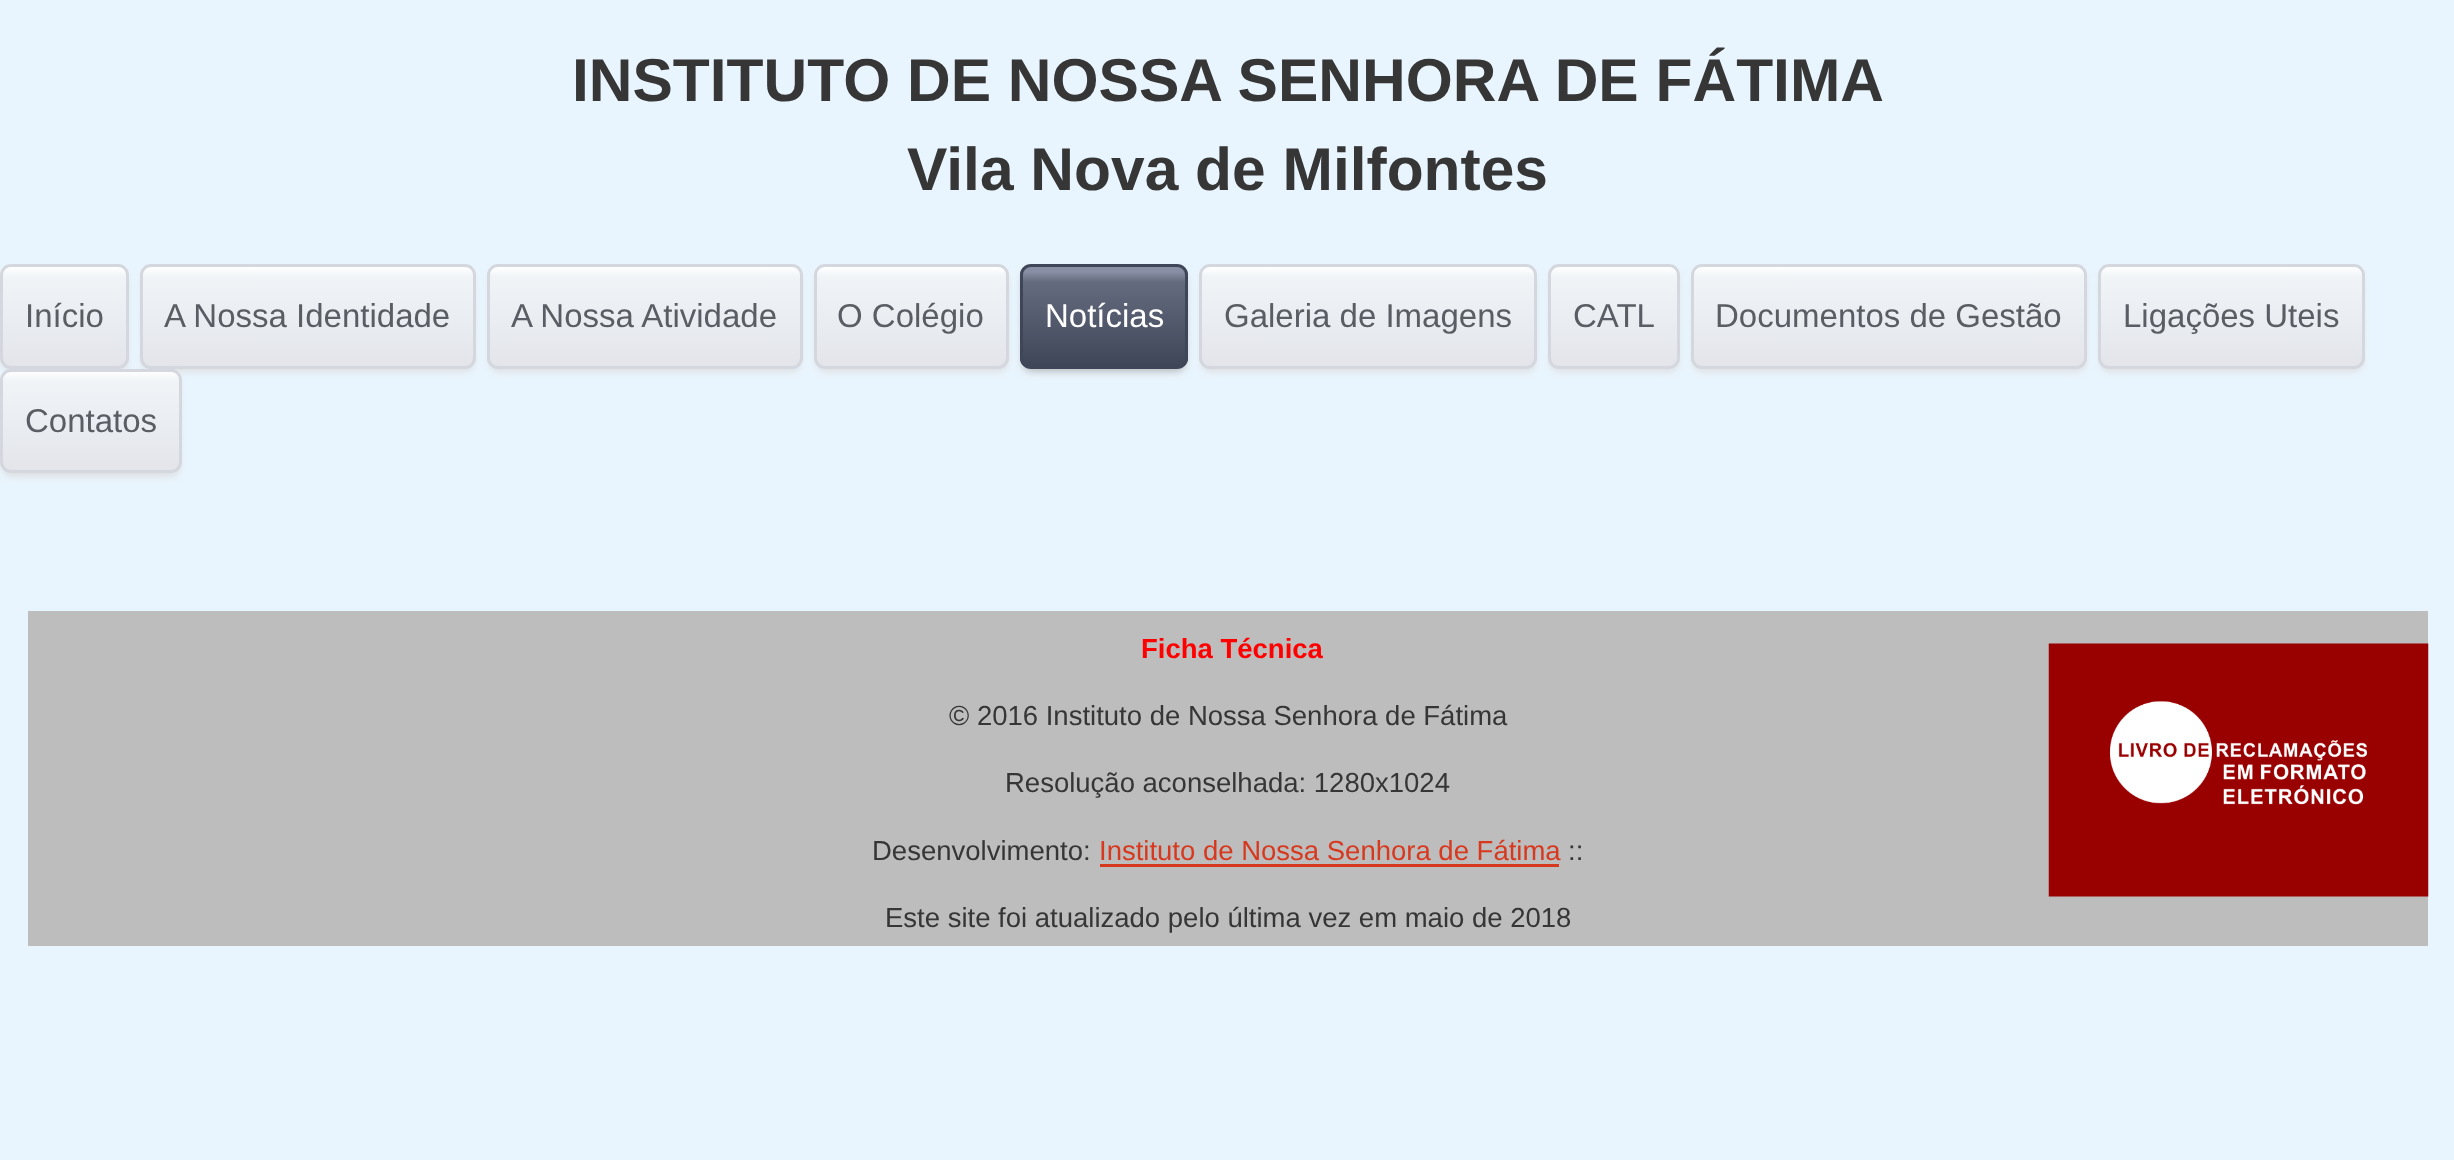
<?xml version="1.0" encoding="UTF-8"?>
<svg xmlns="http://www.w3.org/2000/svg" width="2454" height="1160">
    <defs>
        <filter id="blur1" x="-50%" y="-200%" width="200%" height="500%"><feGaussianBlur stdDeviation="4"/></filter>
        <clipPath id="clip1"><rect x="0" y="264" width="129" height="105" rx="11"/></clipPath>
        <linearGradient id="g1" gradientUnits="userSpaceOnUse" x1="2.8" y1="267" x2="2.8" y2="366"><stop offset="0" stop-color="#FFFFFF"/><stop offset="0.1" stop-color="#F0F4F7"/><stop offset="1" stop-color="#E3E5EB"/></linearGradient>
        <clipPath id="clip2"><rect x="140" y="264" width="336" height="105" rx="11"/></clipPath>
        <linearGradient id="g2" gradientUnits="userSpaceOnUse" x1="143" y1="267" x2="143" y2="366"><stop offset="0" stop-color="#FFFFFF"/><stop offset="0.1" stop-color="#F0F4F7"/><stop offset="1" stop-color="#E3E5EB"/></linearGradient>
        <clipPath id="clip3"><rect x="487" y="264" width="316" height="105" rx="11"/></clipPath>
        <linearGradient id="g3" gradientUnits="userSpaceOnUse" x1="490" y1="267" x2="490" y2="366"><stop offset="0" stop-color="#FFFFFF"/><stop offset="0.1" stop-color="#F0F4F7"/><stop offset="1" stop-color="#E3E5EB"/></linearGradient>
        <clipPath id="clip4"><rect x="814" y="264" width="195" height="105" rx="11"/></clipPath>
        <linearGradient id="g4" gradientUnits="userSpaceOnUse" x1="817" y1="267" x2="817" y2="366"><stop offset="0" stop-color="#FFFFFF"/><stop offset="0.1" stop-color="#F0F4F7"/><stop offset="1" stop-color="#E3E5EB"/></linearGradient>
        <clipPath id="clip5"><rect x="1020" y="264" width="168" height="105" rx="11"/></clipPath>
        <linearGradient id="g5" gradientUnits="userSpaceOnUse" x1="1023" y1="267" x2="1023" y2="366"><stop offset="0" stop-color="#898FA4"/><stop offset="0.05" stop-color="#898FA4"/><stop offset="0.15" stop-color="#646B7E"/><stop offset="1" stop-color="#3F4658"/></linearGradient>
        <clipPath id="clip6"><rect x="1199" y="264" width="338" height="105" rx="11"/></clipPath>
        <linearGradient id="g6" gradientUnits="userSpaceOnUse" x1="1202" y1="267" x2="1202" y2="366"><stop offset="0" stop-color="#FFFFFF"/><stop offset="0.1" stop-color="#F0F4F7"/><stop offset="1" stop-color="#E3E5EB"/></linearGradient>
        <clipPath id="clip7"><rect x="1548" y="264" width="132" height="105" rx="11"/></clipPath>
        <linearGradient id="g7" gradientUnits="userSpaceOnUse" x1="1551" y1="267" x2="1551" y2="366"><stop offset="0" stop-color="#FFFFFF"/><stop offset="0.1" stop-color="#F0F4F7"/><stop offset="1" stop-color="#E3E5EB"/></linearGradient>
        <clipPath id="clip8"><rect x="1691" y="264" width="396" height="105" rx="11"/></clipPath>
        <linearGradient id="g8" gradientUnits="userSpaceOnUse" x1="1694" y1="267" x2="1694" y2="366"><stop offset="0" stop-color="#FFFFFF"/><stop offset="0.1" stop-color="#F0F4F7"/><stop offset="1" stop-color="#E3E5EB"/></linearGradient>
        <clipPath id="clip9"><rect x="2098" y="264" width="267" height="105" rx="11"/></clipPath>
        <linearGradient id="g9" gradientUnits="userSpaceOnUse" x1="2101" y1="267" x2="2101" y2="366"><stop offset="0" stop-color="#FFFFFF"/><stop offset="0.1" stop-color="#F0F4F7"/><stop offset="1" stop-color="#E3E5EB"/></linearGradient>
        <clipPath id="clip10"><rect x="0" y="369" width="182" height="104" rx="11"/></clipPath>
        <linearGradient id="g10" gradientUnits="userSpaceOnUse" x1="2.8" y1="371" x2="2.8" y2="470"><stop offset="0" stop-color="#FFFFFF"/><stop offset="0.1" stop-color="#F0F4F7"/><stop offset="1" stop-color="#E3E5EB"/></linearGradient>
    </defs>
    <rect width="100%" height="100%" fill="#E9F5FE"/>
    <text x="572" y="101" font-family="Liberation Sans" font-size="60.5" font-weight="700" fill="#363636">INSTITUTO DE NOSSA SENHORA DE FÁTIMA</text>
    <text x="907" y="190" font-family="Liberation Sans" font-size="60.5" font-weight="700" fill="#363636">Vila Nova de Milfontes</text>
    <rect x="3" y="272" width="124" height="99" rx="8" fill="#DBDBDB" filter="url(#blur1)"/>
    <g clip-path="url(#clip1)">
        <rect x="0" y="267" width="129" height="99" fill="url(#g1)"/>
    </g>
    <rect x="1.5" y="265.5" width="126" height="102" rx="9.5" fill="none" stroke="#D4D7DE" stroke-width="3"/>
    <text x="25" y="327" font-family="Liberation Sans" font-size="33" fill="#5A5D63">Início</text>
    <rect x="143" y="272" width="330" height="99" rx="8" fill="#DBDBDB" filter="url(#blur1)"/>
    <g clip-path="url(#clip2)">
        <rect x="140" y="267" width="336" height="99" fill="url(#g2)"/>
    </g>
    <rect x="141.5" y="265.5" width="333" height="102" rx="9.5" fill="none" stroke="#D4D7DE" stroke-width="3"/>
    <text x="164" y="327" font-family="Liberation Sans" font-size="33" fill="#5A5D63">A Nossa Identidade</text>
    <rect x="490" y="272" width="310" height="99" rx="8" fill="#DBDBDB" filter="url(#blur1)"/>
    <g clip-path="url(#clip3)">
        <rect x="487" y="267" width="316" height="99" fill="url(#g3)"/>
    </g>
    <rect x="488.5" y="265.5" width="313" height="102" rx="9.5" fill="none" stroke="#D4D7DE" stroke-width="3"/>
    <text x="511" y="327" font-family="Liberation Sans" font-size="33" fill="#5A5D63">A Nossa Atividade</text>
    <rect x="817" y="272" width="190" height="99" rx="8" fill="#DBDBDB" filter="url(#blur1)"/>
    <g clip-path="url(#clip4)">
        <rect x="814" y="267" width="195" height="99" fill="url(#g4)"/>
    </g>
    <rect x="815.5" y="265.5" width="192" height="102" rx="9.5" fill="none" stroke="#D4D7DE" stroke-width="3"/>
    <text x="837" y="327" font-family="Liberation Sans" font-size="33" fill="#5A5D63">O Colégio</text>
    <rect x="1023" y="272" width="162" height="99" rx="8" fill="#B3B3B3" filter="url(#blur1)"/>
    <g clip-path="url(#clip5)">
        <rect x="1020" y="267" width="168" height="99" fill="url(#g5)"/>
    </g>
    <rect x="1021.5" y="265.5" width="165" height="102" rx="9.5" fill="none" stroke="#3F4658" stroke-width="3"/>
    <text x="1045" y="327" font-family="Liberation Sans" font-size="33" fill="#FFFFFF">Notícias</text>
    <rect x="1202" y="272" width="333" height="99" rx="8" fill="#DBDBDB" filter="url(#blur1)"/>
    <g clip-path="url(#clip6)">
        <rect x="1199" y="267" width="338" height="99" fill="url(#g6)"/>
    </g>
    <rect x="1200.5" y="265.5" width="335" height="102" rx="9.5" fill="none" stroke="#D4D7DE" stroke-width="3"/>
    <text x="1224" y="327" font-family="Liberation Sans" font-size="33" fill="#5A5D63">Galeria de Imagens</text>
    <rect x="1551" y="272" width="127" height="99" rx="8" fill="#DBDBDB" filter="url(#blur1)"/>
    <g clip-path="url(#clip7)">
        <rect x="1548" y="267" width="132" height="99" fill="url(#g7)"/>
    </g>
    <rect x="1549.5" y="265.5" width="129" height="102" rx="9.5" fill="none" stroke="#D4D7DE" stroke-width="3"/>
    <text x="1573" y="327" font-family="Liberation Sans" font-size="33" fill="#5A5D63">CATL</text>
    <rect x="1694" y="272" width="391" height="99" rx="8" fill="#DBDBDB" filter="url(#blur1)"/>
    <g clip-path="url(#clip8)">
        <rect x="1691" y="267" width="396" height="99" fill="url(#g8)"/>
    </g>
    <rect x="1692.5" y="265.5" width="393" height="102" rx="9.5" fill="none" stroke="#D4D7DE" stroke-width="3"/>
    <text x="1715" y="327" font-family="Liberation Sans" font-size="33" fill="#5A5D63">Documentos de Gestão</text>
    <rect x="2101" y="272" width="261" height="99" rx="8" fill="#DBDBDB" filter="url(#blur1)"/>
    <g clip-path="url(#clip9)">
        <rect x="2098" y="267" width="267" height="99" fill="url(#g9)"/>
    </g>
    <rect x="2099.5" y="265.5" width="264" height="102" rx="9.5" fill="none" stroke="#D4D7DE" stroke-width="3"/>
    <text x="2123" y="327" font-family="Liberation Sans" font-size="33" fill="#5A5D63">Ligações Uteis</text>
    <rect x="3" y="377" width="176" height="99" rx="8" fill="#DBDBDB" filter="url(#blur1)"/>
    <g clip-path="url(#clip10)">
        <rect x="0" y="371" width="182" height="99" fill="url(#g10)"/>
    </g>
    <rect x="1.5" y="370.5" width="179" height="101" rx="9.5" fill="none" stroke="#D4D7DE" stroke-width="3"/>
    <text x="25" y="432" font-family="Liberation Sans" font-size="33" fill="#5A5D63">Contatos</text>
    <rect x="28" y="611" width="2400" height="335" fill="#BDBDBD"/>
    <text x="1141" y="658" font-family="Liberation Sans" font-size="27.5" font-weight="700" fill="#FF0000">Ficha Técnica</text>
    <text x="949" y="725" font-family="Liberation Sans" font-size="27.5" fill="#363636">© 2016 Instituto de Nossa Senhora de Fátima</text>
    <text x="1005" y="792" font-family="Liberation Sans" font-size="27.5" fill="#363636">Resolução aconselhada: 1280x1024</text>
    <text x="872" y="860" font-family="Liberation Sans" font-size="27.5" fill="#363636">Desenvolvimento:</text>
    <text x="1099" y="860" font-family="Liberation Sans" font-size="27.5" fill="#D7391F">Instituto de Nossa Senhora de Fátima</text>
    <rect x="1100" y="864" width="459" height="3" fill="#D7391F"/>
    <text x="1568" y="860" font-family="Liberation Sans" font-size="27.5" fill="#363636">::</text>
    <text x="885" y="927" font-family="Liberation Sans" font-size="27.5" fill="#363636">Este site foi atualizado pelo última vez em maio de 2018</text>
    <image x="2048" y="643" width="381" height="254" href="img_01.png"/>
</svg>
